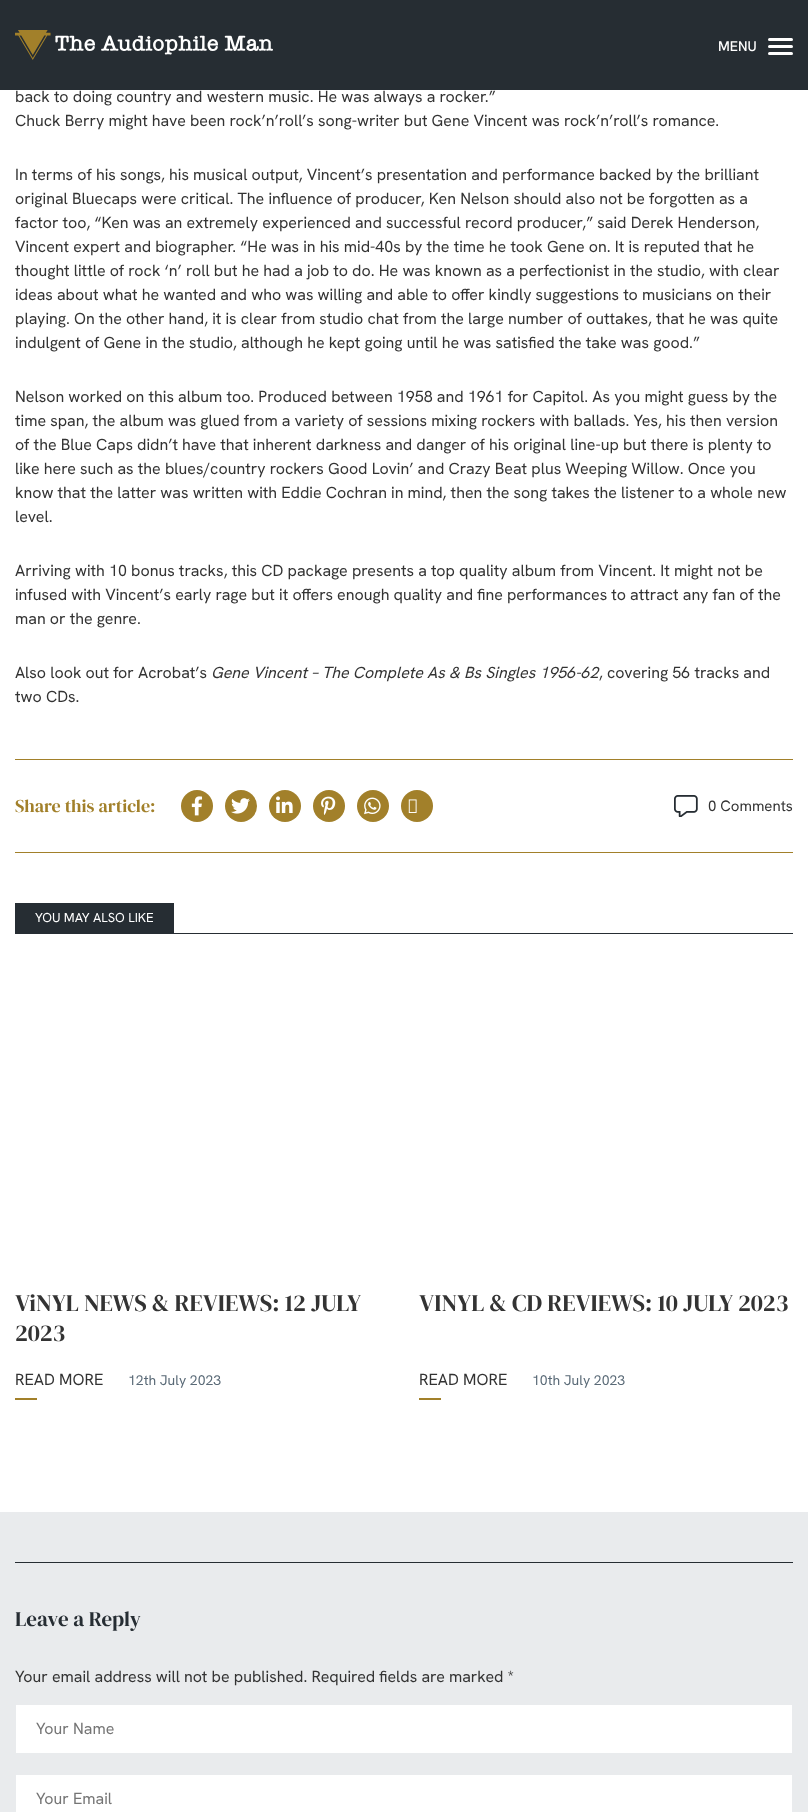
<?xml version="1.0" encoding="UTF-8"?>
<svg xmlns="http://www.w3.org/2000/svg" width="808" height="1812">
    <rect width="100%" height="100%" fill="#FFFFFF"/>
    <rect x="0" y="0" width="808" height="90" fill="#262D33"/>
    <image x="15" y="30" width="258" height="30" href="img_01.png"/>
    <text x="718" y="51" font-family="Hanken Grotesk" font-size="14" font-weight="500" fill="#FFFFFF">MENU</text>
    <rect x="768" y="38" width="25" height="3" rx="1.5" fill="#FFFFFF"/>
    <rect x="768" y="45" width="25" height="3" rx="1.5" fill="#FFFFFF"/>
    <rect x="768" y="52" width="25" height="3" rx="1.5" fill="#FFFFFF"/>
    <text font-family="Hanken Grotesk" font-size="16" fill="#333333">
        <tspan x="15" y="102">back to doing country and western music. He was always a rocker.”</tspan>
        <tspan x="15" y="126">Chuck Berry might have been rock’n’roll’s song-writer but Gene Vincent was rock’n’roll’s romance.</tspan>
    </text>
    <text font-family="Hanken Grotesk" font-size="16" fill="#333333">
        <tspan x="15" y="180">In terms of his songs, his musical output, Vincent’s presentation and performance backed by the brilliant</tspan>
        <tspan x="15" y="204">original Bluecaps were critical. The influence of producer, Ken Nelson should also not be forgotten as a</tspan>
        <tspan x="15" y="228">factor too, “Ken was an extremely experienced and successful record producer,” said Derek Henderson,</tspan>
        <tspan x="15" y="252">Vincent expert and biographer. “He was in his mid-40s by the time he took Gene on. It is reputed that he</tspan>
        <tspan x="15" y="276">thought little of rock ‘n’ roll but he had a job to do. He was known as a perfectionist in the studio, with clear</tspan>
        <tspan x="15" y="300">ideas about what he wanted and who was willing and able to offer kindly suggestions to musicians on their</tspan>
        <tspan x="15" y="324">playing. On the other hand, it is clear from studio chat from the large number of outtakes, that he was quite</tspan>
        <tspan x="15" y="348">indulgent of Gene in the studio, although he kept going until he was satisfied the take was good.”</tspan>
    </text>
    <text font-family="Hanken Grotesk" font-size="16" fill="#333333">
        <tspan x="15" y="402">Nelson worked on this album too. Produced between 1958 and 1961 for Capitol. As you might guess by the</tspan>
        <tspan x="15" y="426">time span, the album was glued from a variety of sessions mixing rockers with ballads. Yes, his then version</tspan>
        <tspan x="15" y="450">of the Blue Caps didn’t have that inherent darkness and danger of his original line-up but there is plenty to</tspan>
        <tspan x="15" y="474">like here such as the blues/country rockers Good Lovin’ and Crazy Beat plus Weeping Willow. Once you</tspan>
        <tspan x="15" y="498">know that the latter was written with Eddie Cochran in mind, then the song takes the listener to a whole new</tspan>
        <tspan x="15" y="522">level.</tspan>
    </text>
    <text font-family="Hanken Grotesk" font-size="16" fill="#333333">
        <tspan x="15" y="576">Arriving with 10 bonus tracks, this CD package presents a top quality album from Vincent. It might not be</tspan>
        <tspan x="15" y="600">infused with Vincent’s early rage but it offers enough quality and fine performances to attract any fan of the</tspan>
        <tspan x="15" y="624">man or the genre.</tspan>
    </text>
    <text x="15" y="678" font-family="Hanken Grotesk" font-size="16" fill="#333333">Also look out for Acrobat’s</text>
    <text x="211" y="678" font-family="Hanken Grotesk" font-size="16" font-style="italic" fill="#333333">Gene Vincent – The Complete As &amp; Bs Singles 1956-62</text>
    <text x="599" y="678" font-family="Hanken Grotesk" font-size="16" fill="#333333">, covering 56 tracks and</text>
    <text x="15" y="702" font-family="Hanken Grotesk" font-size="16" fill="#333333">two CDs.</text>
    <rect x="15" y="759" width="778" height="1" fill="#A2802A"/>
    <rect x="15" y="852" width="778" height="1" fill="#A2802A"/>
    <text x="15" y="812" font-family="DM Serif Display" font-size="18" fill="#A2802A">Share this article:</text>
    <circle cx="197" cy="806" r="16" fill="#A2802A"/>
    <image x="191" y="796" width="12" height="20" href="img_02.png"/>
    <circle cx="241" cy="806" r="16" fill="#A2802A"/>
    <image x="231" y="798" width="19" height="16" href="img_03.png"/>
    <circle cx="285" cy="806" r="16" fill="#A2802A"/>
    <image x="276" y="796" width="17" height="17" href="img_04.png"/>
    <circle cx="329" cy="806" r="16" fill="#A2802A"/>
    <image x="321" y="796" width="15" height="19" href="img_05.png"/>
    <circle cx="373" cy="806" r="16" fill="#A2802A"/>
    <image x="364" y="797" width="17" height="18" href="img_06.png"/>
    <circle cx="417" cy="806" r="16" fill="#A2802A"/>
    <image x="408" y="799" width="9" height="14" href="img_07.png"/>
    <image x="674" y="795" width="24" height="22" href="img_08.png"/>
    <text x="708" y="811" font-family="Hanken Grotesk" font-size="15" fill="#333333">0 Comments</text>
    <rect x="15" y="933" width="778" height="1" fill="#262D33"/>
    <rect x="15" y="903" width="159" height="30" fill="#262D33"/>
    <text x="35" y="922" font-family="Hanken Grotesk" font-size="13" fill="#FFFFFF">YOU MAY ALSO LIKE</text>
    <text font-family="DM Serif Display" font-size="24" fill="#333333">
        <tspan x="15" y="1311">ViNYL NEWS &amp; REVIEWS: 12 JULY</tspan>
        <tspan x="15" y="1341">2023</tspan>
    </text>
    <text x="15" y="1385" font-family="Hanken Grotesk" font-size="16" fill="#333333">READ MORE</text>
    <rect x="15" y="1398" width="22" height="2" fill="#A2802A"/>
    <text x="128" y="1385" font-family="Hanken Grotesk" font-size="14" fill="#5A6A77">12th July 2023</text>
    <text x="419" y="1311" font-family="DM Serif Display" font-size="24" fill="#333333">VINYL &amp; CD REVIEWS: 10 JULY 2023</text>
    <text x="419" y="1385" font-family="Hanken Grotesk" font-size="16" fill="#333333">READ MORE</text>
    <rect x="419" y="1398" width="22" height="2" fill="#A2802A"/>
    <text x="532" y="1385" font-family="Hanken Grotesk" font-size="14" fill="#5A6A77">10th July 2023</text>
    <rect x="0" y="1512" width="808" height="300" fill="#E9EBED"/>
    <rect x="15" y="1562" width="778" height="1" fill="#262D33"/>
    <text x="15" y="1626" font-family="DM Serif Display" font-size="21" fill="#262D33">Leave a Reply</text>
    <text x="15" y="1682" font-family="Hanken Grotesk" font-size="16" fill="#333333">Your email address will not be published. Required fields are marked *</text>
    <rect x="16" y="1705" width="776" height="48" fill="#FFFFFF"/>
    <text x="36" y="1734" font-family="Hanken Grotesk" font-size="16" fill="#757575">Your Name</text>
    <rect x="16" y="1775" width="776" height="37" fill="#FFFFFF"/>
    <text x="36" y="1804" font-family="Hanken Grotesk" font-size="16" fill="#757575">Your Email</text>
</svg>
